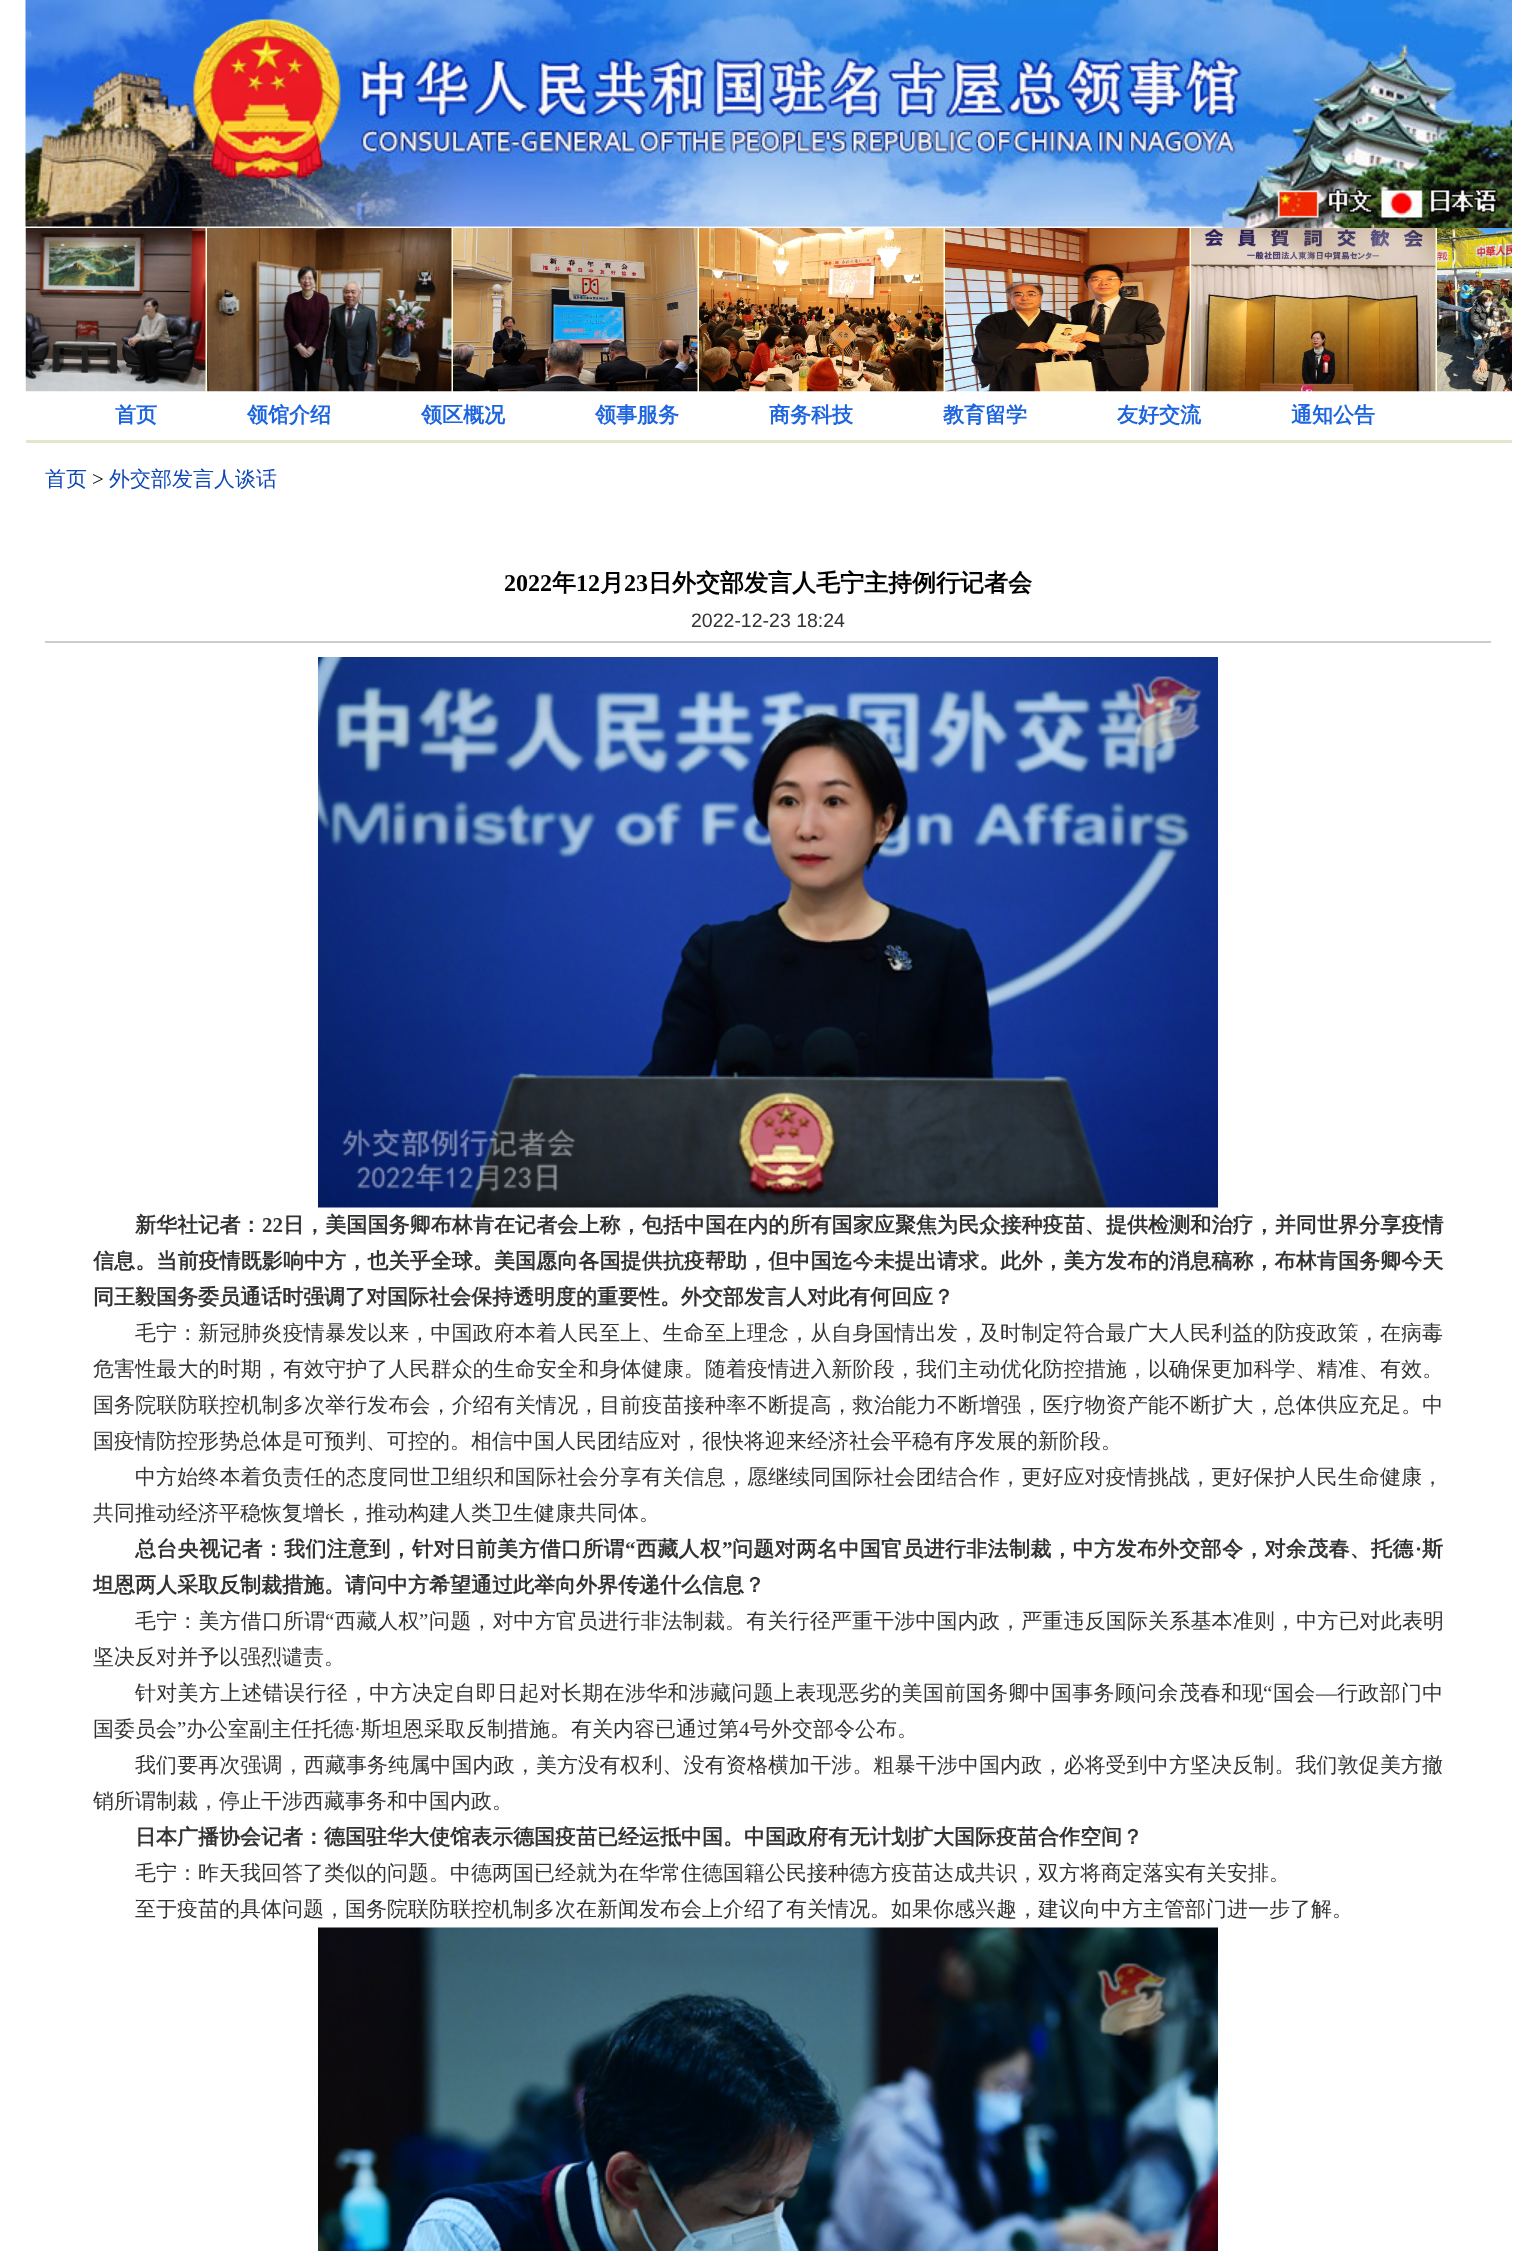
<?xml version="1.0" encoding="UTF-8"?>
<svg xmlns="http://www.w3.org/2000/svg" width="1535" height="2251">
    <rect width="100%" height="100%" fill="#FFFFFF"/>
    <image x="25" y="0" width="1487" height="228" href="img_01.png"/>
    <image x="1269" y="186" width="105" height="42" href="img_02.png"/>
    <image x="1374" y="186" width="138" height="42" href="img_03.png"/>
    <image x="25" y="228" width="1487" height="164" href="img_04.png"/>
    <rect x="26" y="440" width="1486" height="3" fill="#E5E5CD"/>
    <text x="115" y="422" font-family="WenQuanYi Zen Hei" font-size="21" font-weight="700" fill="#1D65DE">首页</text>
    <text x="247" y="422" font-family="WenQuanYi Zen Hei" font-size="21" font-weight="700" fill="#1D65DE">领馆介绍</text>
    <text x="421" y="422" font-family="WenQuanYi Zen Hei" font-size="21" font-weight="700" fill="#1D65DE">领区概况</text>
    <text x="595" y="422" font-family="WenQuanYi Zen Hei" font-size="21" font-weight="700" fill="#1D65DE">领事服务</text>
    <text x="769" y="422" font-family="WenQuanYi Zen Hei" font-size="21" font-weight="700" fill="#1D65DE">商务科技</text>
    <text x="943" y="422" font-family="WenQuanYi Zen Hei" font-size="21" font-weight="700" fill="#1D65DE">教育留学</text>
    <text x="1117" y="422" font-family="WenQuanYi Zen Hei" font-size="21" font-weight="700" fill="#1D65DE">友好交流</text>
    <text x="1291" y="422" font-family="WenQuanYi Zen Hei" font-size="21" font-weight="700" fill="#1D65DE">通知公告</text>
    <text x="45" y="486" font-family="WenQuanYi Zen Hei" font-size="21" font-weight="500" fill="#0F47B4">首页</text>
    <text x="92" y="486" font-family="Liberation Serif" font-size="21" fill="#000000">&gt;</text>
    <text x="109" y="486" font-family="WenQuanYi Zen Hei" font-size="21" font-weight="500" fill="#0F47B4">外交部发言人谈话</text>
    <text x="504" y="591" font-family="Liberation Serif" font-size="24" font-weight="700" fill="#000000">2022</text>
    <text x="552" y="591" font-family="WenQuanYi Zen Hei" font-size="24" font-weight="700" fill="#000000">年</text>
    <text x="576" y="591" font-family="Liberation Serif" font-size="24" font-weight="700" fill="#000000">12</text>
    <text x="600" y="591" font-family="WenQuanYi Zen Hei" font-size="24" font-weight="700" fill="#000000">月</text>
    <text x="624" y="591" font-family="Liberation Serif" font-size="24" font-weight="700" fill="#000000">23</text>
    <text x="648" y="591" font-family="WenQuanYi Zen Hei" font-size="24" font-weight="700" fill="#000000">日外交部发言人毛宁主持例行记者会</text>
    <text x="691" y="627" font-family="Liberation Sans" font-size="19.5" fill="#333333">2022-12-23 18:24</text>
    <rect x="45" y="641" width="1446" height="2" fill="#CCCCCC"/>
    <image x="318" y="657" width="900" height="551" href="img_05.png"/>
    <text x="135" y="1232" font-family="WenQuanYi Zen Hei" font-size="21" font-weight="700" letter-spacing="0.1" fill="#333333">新华社记者：</text>
    <text x="262" y="1232" font-family="Liberation Serif" font-size="21" font-weight="700" letter-spacing="0.1" fill="#333333">22</text>
    <text x="283" y="1232" font-family="WenQuanYi Zen Hei" font-size="21" font-weight="700" letter-spacing="0.1" fill="#333333">日，美国国务卿布林肯在记者会上称，包括中国在内的所有国家应聚焦为民众接种疫苗、提供检测和治疗，并同世界分享疫情</text>
    <text x="93" y="1268" font-family="WenQuanYi Zen Hei" font-size="21" font-weight="700" letter-spacing="0.1" fill="#333333">信息。当前疫情既影响中方，也关乎全球。美国愿向各国提供抗疫帮助，但中国迄今未提出请求。此外，美方发布的消息稿称，布林肯国务卿今天</text>
    <text x="93" y="1304" font-family="WenQuanYi Zen Hei" font-size="21" font-weight="700" fill="#333333">同王毅国务委员通话时强调了对国际社会保持透明度的重要性。外交部发言人对此有何回应？</text>
    <text x="135" y="1340" font-family="WenQuanYi Zen Hei" font-size="21" font-weight="500" letter-spacing="0.1" fill="#333333">毛宁：新冠肺炎疫情暴发以来，中国政府本着人民至上、生命至上理念，从自身国情出发，及时制定符合最广大人民利益的防疫政策，在病毒</text>
    <text font-family="WenQuanYi Zen Hei" font-size="21" font-weight="500" letter-spacing="0.1" fill="#333333">
        <tspan x="93" y="1376">危害性最大的时期，有效守护了人民群众的生命安全和身体健康。随着疫情进入新阶段，我们主动优化防控措施，以确保更加科学、精准、有效。</tspan>
        <tspan x="93" y="1412">国务院联防联控机制多次举行发布会，介绍有关情况，目前疫苗接种率不断提高，救治能力不断增强，医疗物资产能不断扩大，总体供应充足。中</tspan>
    </text>
    <text x="93" y="1448" font-family="WenQuanYi Zen Hei" font-size="21" font-weight="500" fill="#333333">国疫情防控形势总体是可预判、可控的。相信中国人民团结应对，很快将迎来经济社会平稳有序发展的新阶段。</text>
    <text x="135" y="1484" font-family="WenQuanYi Zen Hei" font-size="21" font-weight="500" letter-spacing="0.1" fill="#333333">中方始终本着负责任的态度同世卫组织和国际社会分享有关信息，愿继续同国际社会团结合作，更好应对疫情挑战，更好保护人民生命健康，</text>
    <text x="93" y="1520" font-family="WenQuanYi Zen Hei" font-size="21" font-weight="500" fill="#333333">共同推动经济平稳恢复增长，推动构建人类卫生健康共同体。</text>
    <text x="135" y="1556" font-family="WenQuanYi Zen Hei" font-size="21" font-weight="700" letter-spacing="0.3" fill="#333333">总台央视记者：我们注意到，针对日前美方借口所谓</text>
    <text x="625" y="1556" font-family="Liberation Serif" font-size="21" font-weight="700" letter-spacing="0.3" fill="#333333">“</text>
    <text x="636" y="1556" font-family="WenQuanYi Zen Hei" font-size="21" font-weight="700" letter-spacing="0.3" fill="#333333">西藏人权</text>
    <text x="722" y="1556" font-family="Liberation Serif" font-size="21" font-weight="700" letter-spacing="0.3" fill="#333333">”</text>
    <text x="732" y="1556" font-family="WenQuanYi Zen Hei" font-size="21" font-weight="700" letter-spacing="0.3" fill="#333333">问题对两名中国官员进行非法制裁，中方发布外交部令，对余茂春、托德</text>
    <text x="1415" y="1556" font-family="Liberation Serif" font-size="21" font-weight="700" letter-spacing="0.3" fill="#333333">·</text>
    <text x="1422" y="1556" font-family="WenQuanYi Zen Hei" font-size="21" font-weight="700" letter-spacing="0.3" fill="#333333">斯</text>
    <text x="93" y="1592" font-family="WenQuanYi Zen Hei" font-size="21" font-weight="700" fill="#333333">坦恩两人采取反制裁措施。请问中方希望通过此举向外界传递什么信息？</text>
    <text x="135" y="1628" font-family="WenQuanYi Zen Hei" font-size="21" font-weight="500" letter-spacing="0.15" fill="#333333">毛宁：美方借口所谓</text>
    <text x="325" y="1628" font-family="Liberation Serif" font-size="21" letter-spacing="0.15" fill="#333333">“</text>
    <text x="335" y="1628" font-family="WenQuanYi Zen Hei" font-size="21" font-weight="500" letter-spacing="0.15" fill="#333333">西藏人权</text>
    <text x="419" y="1628" font-family="Liberation Serif" font-size="21" letter-spacing="0.15" fill="#333333">”</text>
    <text x="429" y="1628" font-family="WenQuanYi Zen Hei" font-size="21" font-weight="500" letter-spacing="0.15" fill="#333333">问题，对中方官员进行非法制裁。有关行径严重干涉中国内政，严重违反国际关系基本准则，中方已对此表明</text>
    <text x="93" y="1664" font-family="WenQuanYi Zen Hei" font-size="21" font-weight="500" fill="#333333">坚决反对并予以强烈谴责。</text>
    <text x="135" y="1700" font-family="WenQuanYi Zen Hei" font-size="21" font-weight="500" letter-spacing="0.3" fill="#333333">针对美方上述错误行径，中方决定自即日起对长期在涉华和涉藏问题上表现恶劣的美国前国务卿中国事务顾问余茂春和现</text>
    <text x="1263" y="1700" font-family="Liberation Serif" font-size="21" letter-spacing="0.3" fill="#333333">“</text>
    <text x="1273" y="1700" font-family="WenQuanYi Zen Hei" font-size="21" font-weight="500" letter-spacing="0.3" fill="#333333">国会</text>
    <text x="1337" y="1700" font-family="WenQuanYi Zen Hei" font-size="21" font-weight="500" letter-spacing="0.3" fill="#333333">行政部门中</text>
    <text x="1316" y="1700" font-family="Liberation Serif" font-size="21" letter-spacing="0.3" fill="#333333">—</text>
    <text x="93" y="1736" font-family="WenQuanYi Zen Hei" font-size="21" font-weight="500" fill="#333333">国委员会</text>
    <text x="177" y="1736" font-family="Liberation Serif" font-size="21" fill="#333333">”</text>
    <text x="186" y="1736" font-family="WenQuanYi Zen Hei" font-size="21" font-weight="500" fill="#333333">办公室副主任托德</text>
    <text x="354" y="1736" font-family="Liberation Serif" font-size="21" fill="#333333">·</text>
    <text x="361" y="1736" font-family="WenQuanYi Zen Hei" font-size="21" font-weight="500" fill="#333333">斯坦恩采取反制措施。有关内容已通过第</text>
    <text x="739" y="1736" font-family="Liberation Serif" font-size="21" fill="#333333">4</text>
    <text x="750" y="1736" font-family="WenQuanYi Zen Hei" font-size="21" font-weight="500" fill="#333333">号外交部令公布。</text>
    <text x="135" y="1772" font-family="WenQuanYi Zen Hei" font-size="21" font-weight="500" letter-spacing="0.1" fill="#333333">我们要再次强调，西藏事务纯属中国内政，美方没有权利、没有资格横加干涉。粗暴干涉中国内政，必将受到中方坚决反制。我们敦促美方撤</text>
    <text x="93" y="1808" font-family="WenQuanYi Zen Hei" font-size="21" font-weight="500" fill="#333333">销所谓制裁，停止干涉西藏事务和中国内政。</text>
    <text x="135" y="1844" font-family="WenQuanYi Zen Hei" font-size="21" font-weight="700" fill="#333333">日本广播协会记者：德国驻华大使馆表示德国疫苗已经运抵中国。中国政府有无计划扩大国际疫苗合作空间？</text>
    <text font-family="WenQuanYi Zen Hei" font-size="21" font-weight="500" fill="#333333">
        <tspan x="135" y="1880">毛宁：昨天我回答了类似的问题。中德两国已经就为在华常住德国籍公民接种德方疫苗达成共识，双方将商定落实有关安排。</tspan>
        <tspan x="135" y="1916">至于疫苗的具体问题，国务院联防联控机制多次在新闻发布会上介绍了有关情况。如果你感兴趣，建议向中方主管部门进一步了解。</tspan>
    </text>
    <image x="318" y="1927" width="900" height="324" href="img_06.png"/>
</svg>
